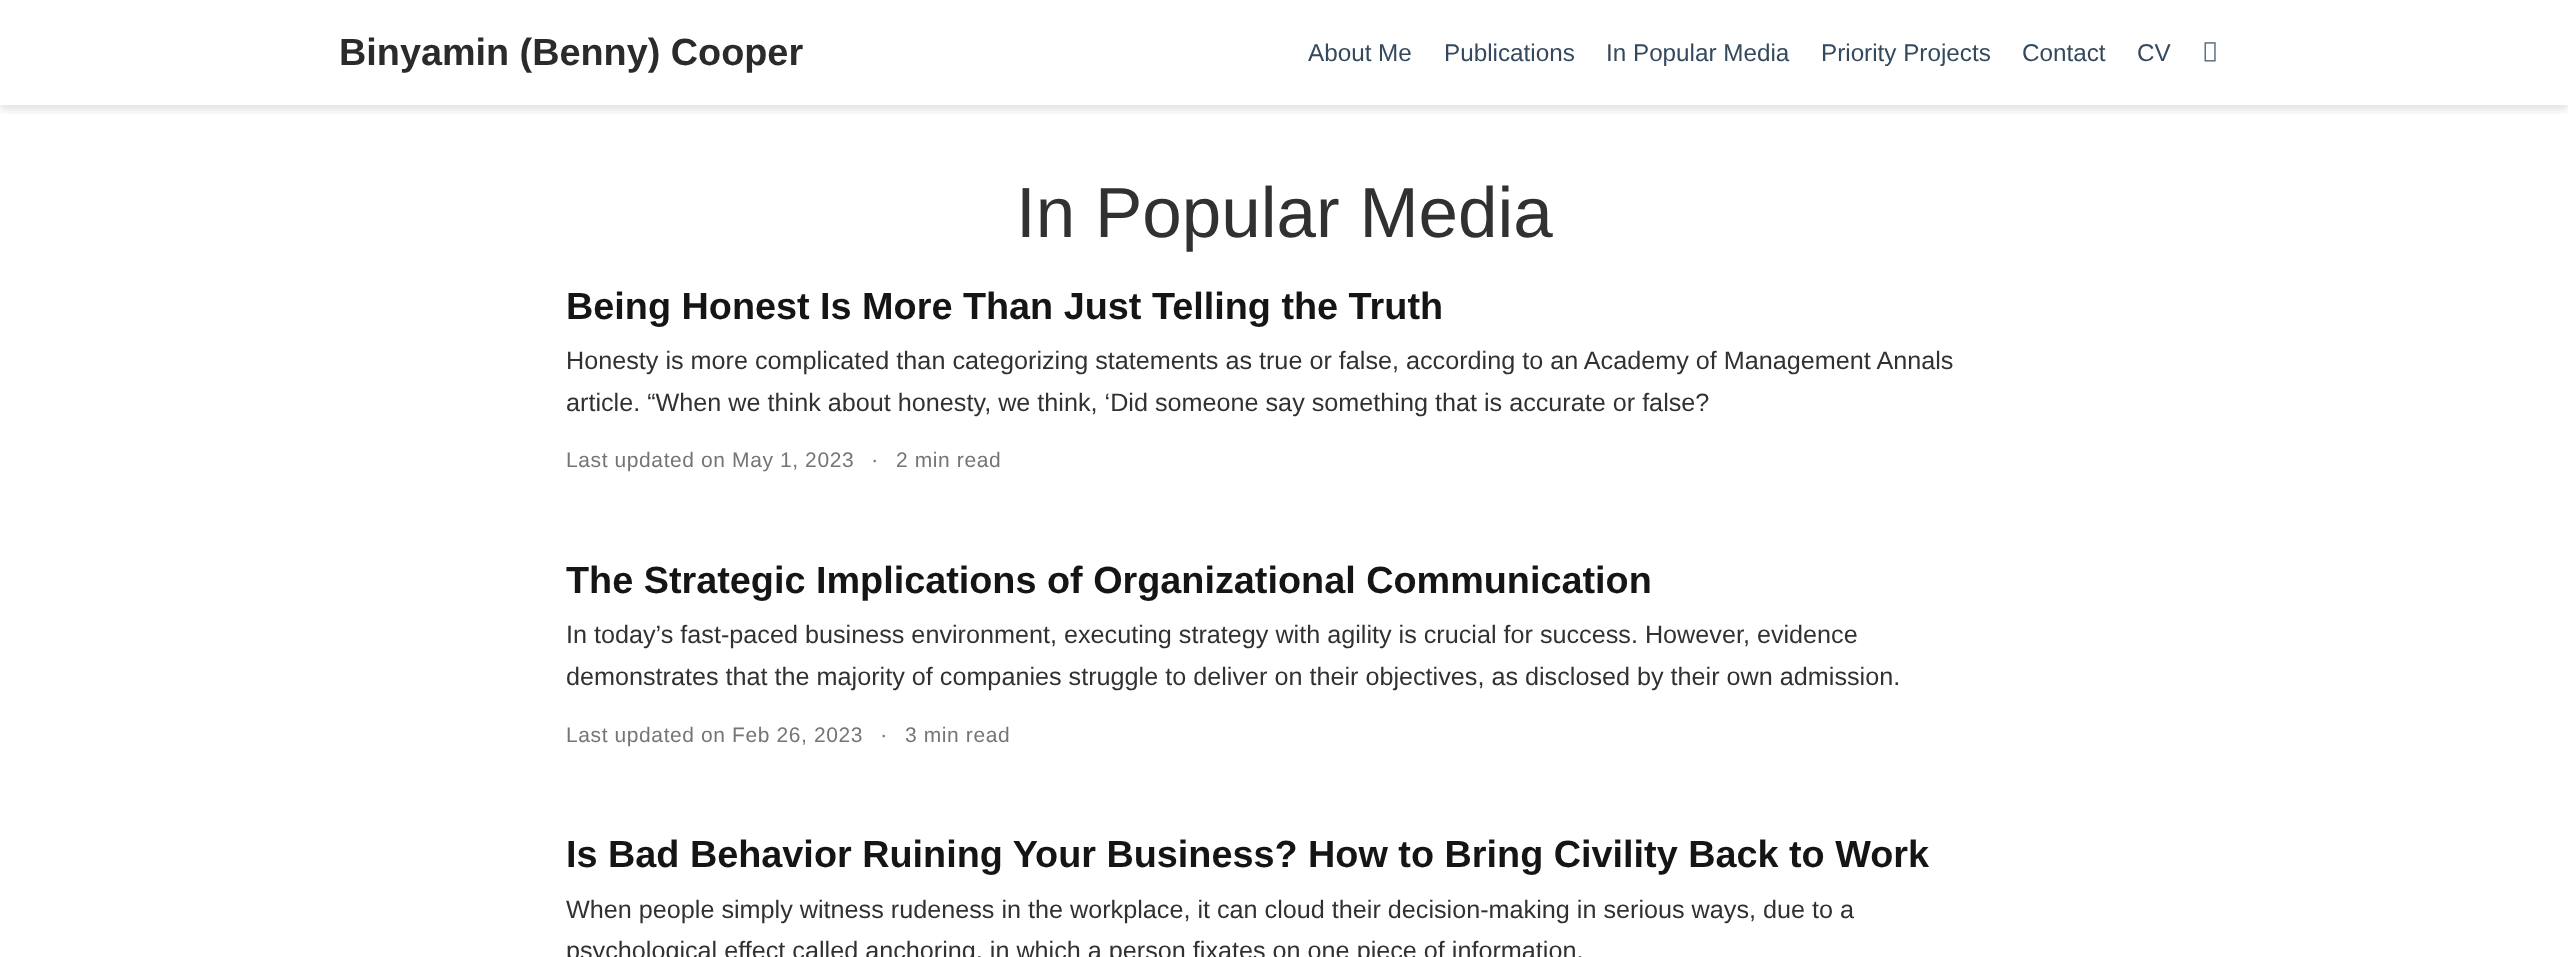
<?xml version="1.0" encoding="UTF-8"?>
<svg xmlns="http://www.w3.org/2000/svg" width="2568" height="957">
    <defs>
        <clipPath id="clip1"><rect x="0" y="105" width="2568" height="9"/></clipPath>
        <filter id="blur1" x="-50%" y="-200%" width="200%" height="500%"><feGaussianBlur stdDeviation="4"/></filter>
    </defs>
    <rect width="100%" height="100%" fill="#FFFFFF"/>
    <g clip-path="url(#clip1)">
        <rect x="0" y="5" width="2568" height="105" fill="#000000" fill-opacity="0.11" filter="url(#blur1)"/>
    </g>
    <text x="339" y="65" font-family="Liberation Sans" font-size="37.8" font-weight="700" fill="#2B2B2B">Binyamin (Benny) Cooper</text>
    <text x="1308" y="61" font-family="Liberation Sans" font-size="24.25" fill="#34495E">About Me</text>
    <text x="1444" y="61" font-family="Liberation Sans" font-size="24.25" fill="#34495E">Publications</text>
    <text x="1606" y="61" font-family="Liberation Sans" font-size="24.25" fill="#34495E">In Popular Media</text>
    <text x="1821" y="61" font-family="Liberation Sans" font-size="24.25" fill="#34495E">Priority Projects</text>
    <text x="2022" y="61" font-family="Liberation Sans" font-size="24.25" fill="#34495E">Contact</text>
    <text x="2137" y="61" font-family="Liberation Sans" font-size="24.25" fill="#34495E">CV</text>
    <image x="2204" y="42" width="12" height="20" href="img_01.png"/>
    <text x="1016" y="237" font-family="Liberation Sans" font-size="71" fill="#313131">In Popular Media</text>
    <text x="566" y="319" font-family="Liberation Sans" font-size="37.8" font-weight="700" fill="#151515">Being Honest Is More Than Just Telling the Truth</text>
    <text font-family="Liberation Sans" font-size="25.2" fill="#313131">
        <tspan x="566" y="369">Honesty is more complicated than categorizing statements as true or false, according to an Academy of Management Annals</tspan>
        <tspan x="566" y="411">article. “When we think about honesty, we think, ‘Did someone say something that is accurate or false?</tspan>
    </text>
    <text x="566" y="467" font-family="Liberation Sans" font-size="21" letter-spacing="0.6" fill="#757575">Last updated on May 1, 2023</text>
    <text x="871" y="467" font-family="Liberation Sans" font-size="22" letter-spacing="0.6" fill="#757575">·</text>
    <text x="896" y="467" font-family="Liberation Sans" font-size="21" letter-spacing="0.6" fill="#757575">2 min read</text>
    <text x="566" y="593" font-family="Liberation Sans" font-size="37.8" font-weight="700" fill="#151515">The Strategic Implications of Organizational Communication</text>
    <text font-family="Liberation Sans" font-size="25.2" fill="#313131">
        <tspan x="566" y="643">In today’s fast-paced business environment, executing strategy with agility is crucial for success. However, evidence</tspan>
        <tspan x="566" y="685">demonstrates that the majority of companies struggle to deliver on their objectives, as disclosed by their own admission.</tspan>
    </text>
    <text x="566" y="742" font-family="Liberation Sans" font-size="21" letter-spacing="0.6" fill="#757575">Last updated on Feb 26, 2023</text>
    <text x="880" y="742" font-family="Liberation Sans" font-size="22" letter-spacing="0.6" fill="#757575">·</text>
    <text x="905" y="742" font-family="Liberation Sans" font-size="21" letter-spacing="0.6" fill="#757575">3 min read</text>
    <text x="566" y="867" font-family="Liberation Sans" font-size="37.8" font-weight="700" fill="#151515">Is Bad Behavior Ruining Your Business? How to Bring Civility Back to Work</text>
    <text font-family="Liberation Sans" font-size="25.2" fill="#313131">
        <tspan x="566" y="918">When people simply witness rudeness in the workplace, it can cloud their decision-making in serious ways, due to a</tspan>
        <tspan x="566" y="959">psychological effect called anchoring, in which a person fixates on one piece of information.</tspan>
    </text>
</svg>
